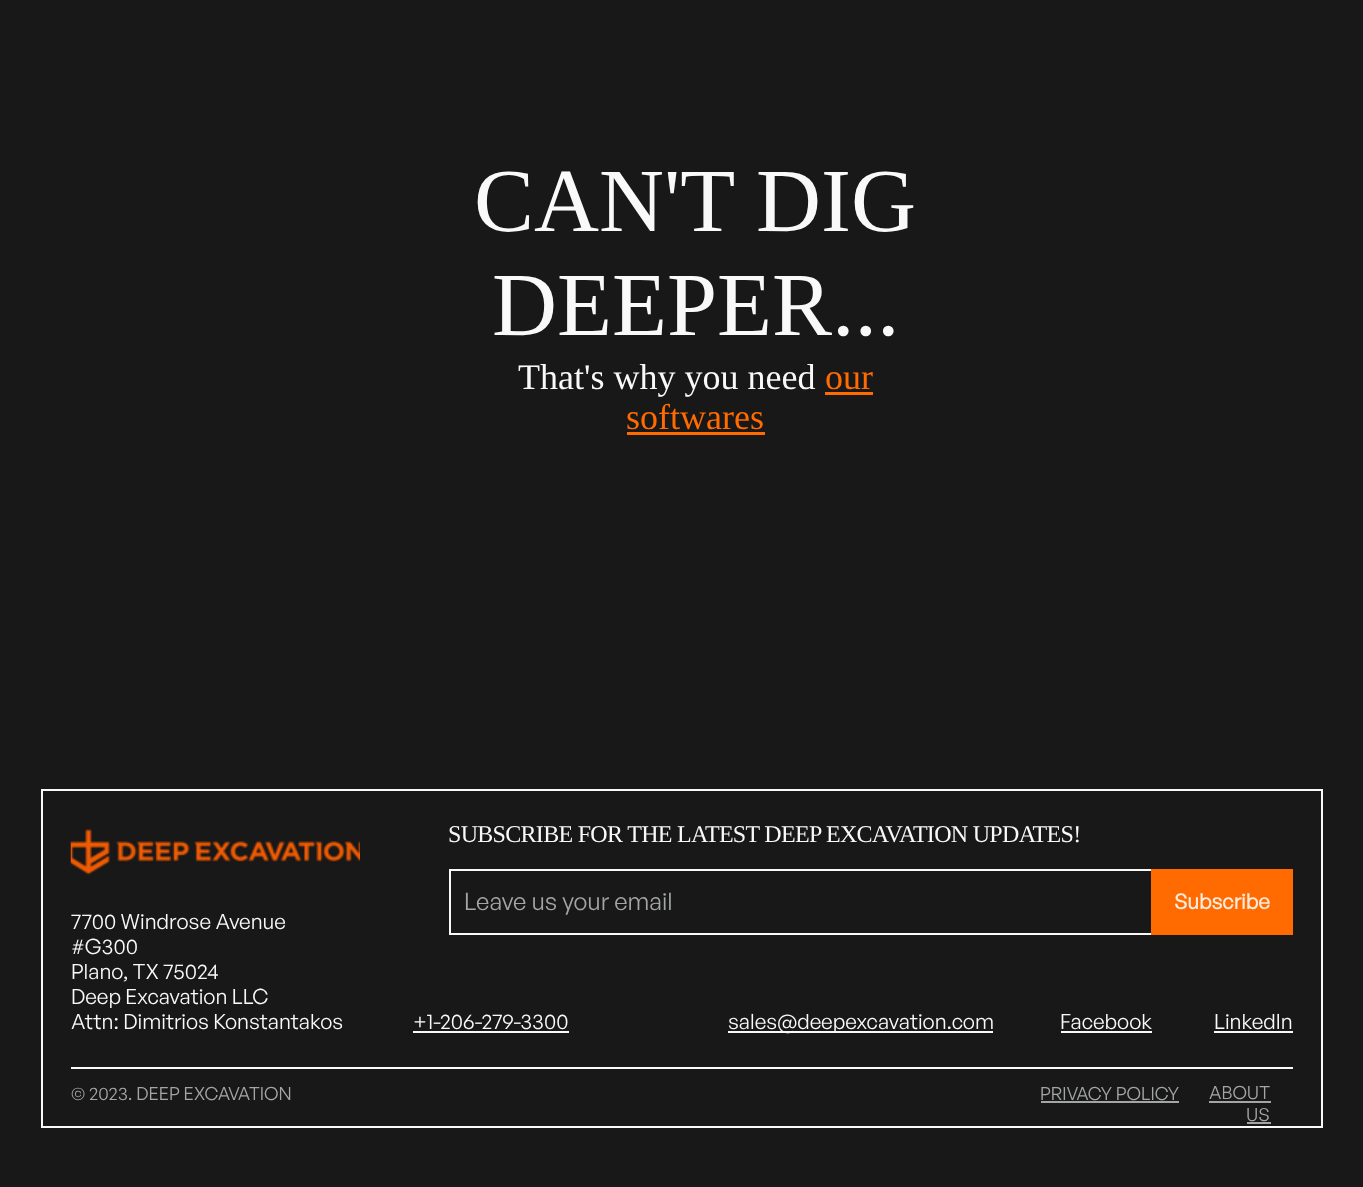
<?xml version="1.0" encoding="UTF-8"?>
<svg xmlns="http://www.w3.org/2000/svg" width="1363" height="1187">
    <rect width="100%" height="100%" fill="#181818"/>
    <text x="474" y="231" font-family="Liberation Serif" font-size="90" fill="#F9F9F9">CAN'T DIG</text>
    <text x="492" y="335" font-family="Liberation Serif" font-size="90" fill="#F9F9F9">DEEPER...</text>
    <text x="518" y="389" font-family="Liberation Serif" font-size="36" fill="#F9F9F9">That's why you need</text>
    <text x="825" y="389" font-family="Liberation Serif" font-size="36" fill="#FF6B01">our</text>
    <rect x="825" y="392" width="48" height="3" fill="#FF6B01"/>
    <text x="626" y="429" font-family="Liberation Serif" font-size="36" fill="#FF6B01">softwares</text>
    <rect x="627" y="432" width="138" height="3" fill="#FF6B01"/>
    <rect x="42" y="790" width="1280" height="337" fill="none" stroke="#F9F9F9" stroke-width="2"/>
    <image x="70" y="829" width="290" height="46" href="img_01.png"/>
    <text x="448" y="842" font-family="Liberation Serif" font-size="24" letter-spacing="-0.7" fill="#F9F9F9">SUBSCRIBE FOR THE LATEST DEEP EXCAVATION UPDATES!</text>
    <rect x="450" y="870" width="842" height="64" fill="none" stroke="#F9F9F9" stroke-width="2"/>
    <text x="464" y="910" font-family="General Sans" font-size="24" fill="#A4A5A6">Leave us your email</text>
    <rect x="1151" y="869" width="142" height="66" fill="#FF6B01"/>
    <text x="1174" y="909" font-family="General Sans" font-size="21" font-weight="700" fill="#FFEBDC">Subscribe</text>
    <text font-family="General Sans" font-size="21" fill="#F9F9F9">
        <tspan x="71" y="929">7700 Windrose Avenue</tspan>
        <tspan x="71" y="954">#G300</tspan>
        <tspan x="71" y="979">Plano, TX 75024</tspan>
        <tspan x="71" y="1004">Deep Excavation LLC</tspan>
        <tspan x="71" y="1029">Attn: Dimitrios Konstantakos</tspan>
    </text>
    <text x="413" y="1029" font-family="General Sans" font-size="21" fill="#F9F9F9">+1-206-279-3300</text>
    <rect x="413" y="1031" width="156" height="2" fill="#F9F9F9"/>
    <rect x="728" y="1031" width="265" height="2" fill="#F9F9F9"/>
    <text x="728" y="1029" font-family="General Sans" font-size="21" fill="#F9F9F9">sales@deepexcavation.com</text>
    <text x="1060" y="1029" font-family="General Sans" font-size="21" fill="#F9F9F9">Facebook</text>
    <rect x="1061" y="1031" width="91" height="2" fill="#F9F9F9"/>
    <text x="1214" y="1029" font-family="General Sans" font-size="21" fill="#F9F9F9">LinkedIn</text>
    <rect x="1214" y="1031" width="79" height="2" fill="#F9F9F9"/>
    <rect x="71" y="1067" width="1222" height="2" fill="#F9F9F9"/>
    <text x="71" y="1100" font-family="General Sans" font-size="18" fill="#A4A5A6">© 2023. DEEP EXCAVATION</text>
    <text x="1040" y="1100" font-family="General Sans" font-size="18" fill="#A4A5A6">PRIVACY POLICY</text>
    <rect x="1041" y="1101" width="138" height="2" fill="#A4A5A6"/>
    <text x="1209" y="1099" font-family="General Sans" font-size="18" fill="#A4A5A6">ABOUT</text>
    <rect x="1209" y="1101" width="62" height="2" fill="#A4A5A6"/>
    <text x="1246" y="1121" font-family="General Sans" font-size="18" fill="#A4A5A6">US</text>
    <rect x="1247" y="1122" width="24" height="2" fill="#A4A5A6"/>
</svg>
